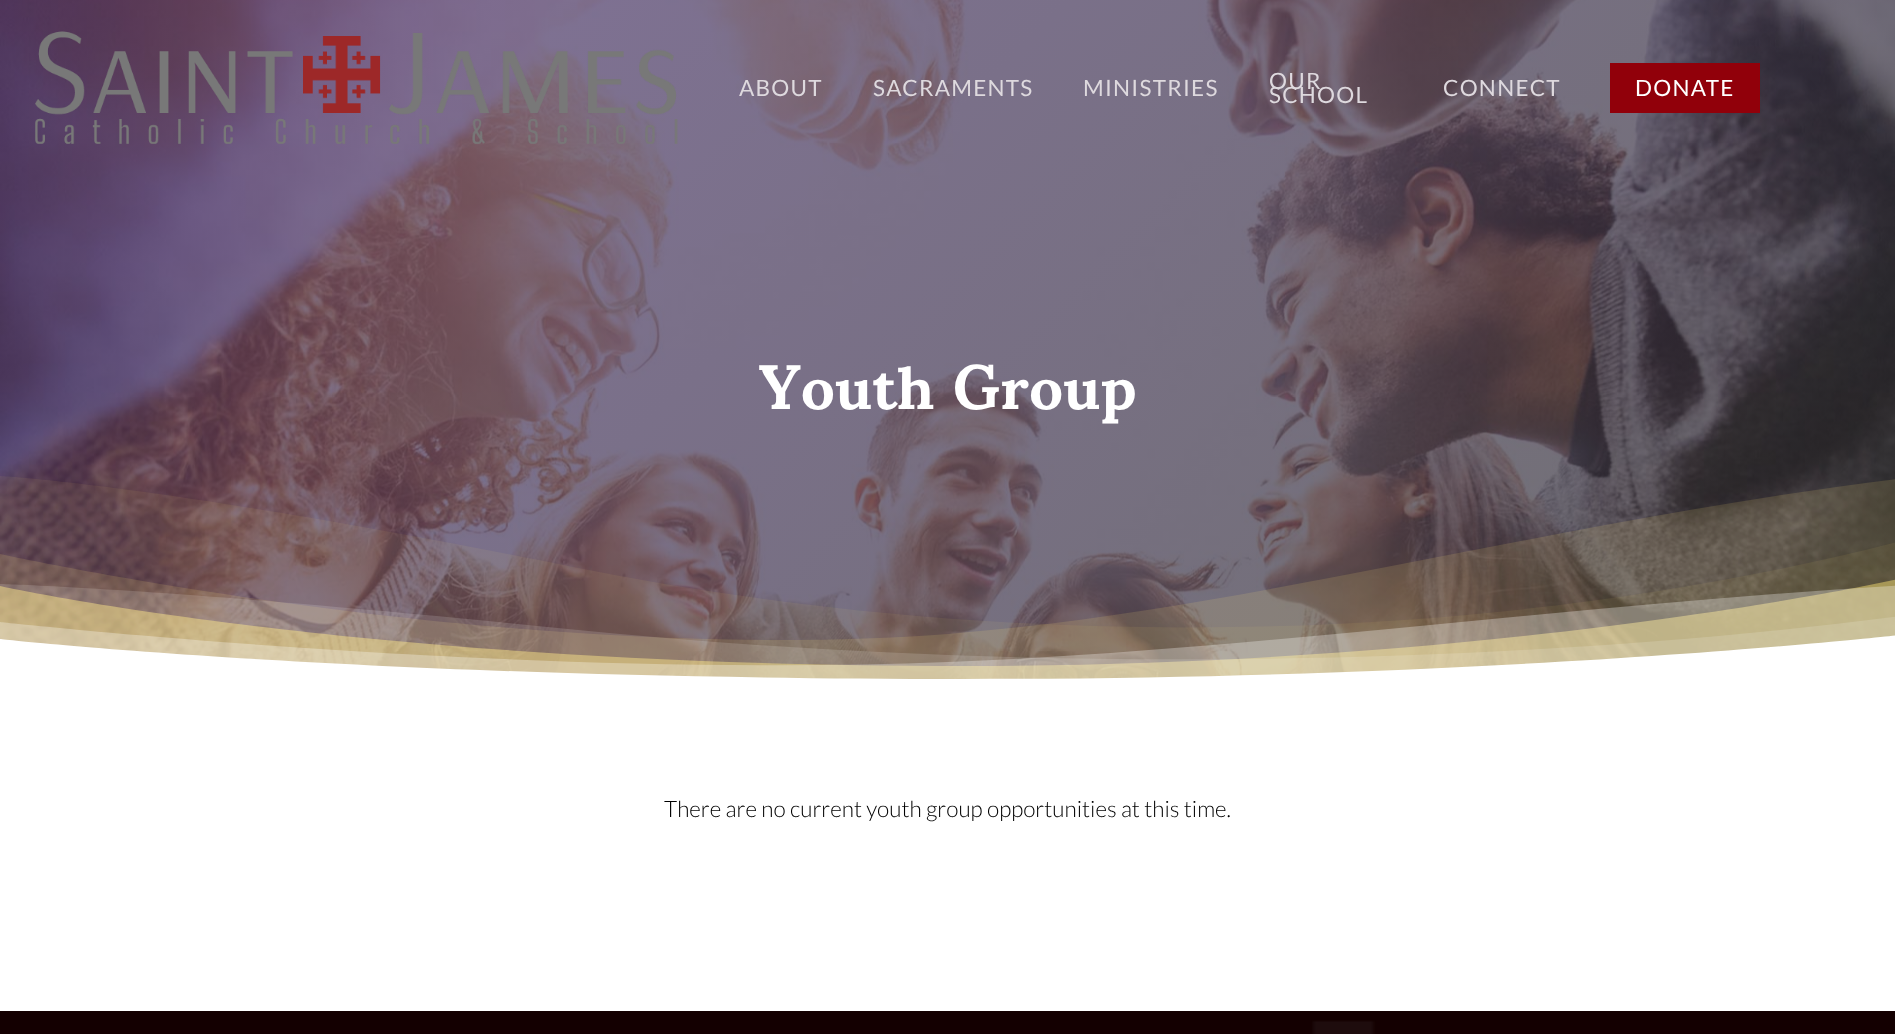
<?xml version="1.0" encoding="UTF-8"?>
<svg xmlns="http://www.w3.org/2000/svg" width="1895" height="1034">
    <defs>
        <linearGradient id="g1" gradientUnits="userSpaceOnUse" x1="301" y1="-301" x2="1594" y2="991"><stop offset="0" stop-color="#3F2566" stop-opacity="0.65"/><stop offset="1" stop-color="#252525" stop-opacity="0.66"/></linearGradient>
        <clipPath id="clip1"><rect x="0" y="441" width="1895" height="250"/></clipPath>
        <clipPath id="clip2"><rect x="0" y="566" width="1895" height="125"/></clipPath>
    </defs>
    <rect width="100%" height="100%" fill="#FFFFFF"/>
    <image x="0" y="0" width="1895" height="679" href="img_02.png"/>
    <rect x="0" y="0" width="1895" height="679" fill="url(#g1)"/>
    <image x="35" y="31" width="643" height="113" href="img_01.png"/>
    <text x="739" y="96" font-family="Lato" font-size="22.5" letter-spacing="1.25" fill="#DED9DE">ABOUT</text>
    <text x="873" y="96" font-family="Lato" font-size="22.5" letter-spacing="1.25" fill="#DED9DE">SACRAMENTS</text>
    <text x="1083" y="96" font-family="Lato" font-size="22.5" letter-spacing="1.25" fill="#DED9DE">MINISTRIES</text>
    <text font-family="Lato" font-size="22.5" letter-spacing="1.25" fill="#DED9DE">
        <tspan x="1269" y="89">OUR</tspan>
        <tspan x="1269" y="103">SCHOOL</tspan>
    </text>
    <text x="1443" y="96" font-family="Lato" font-size="22.5" letter-spacing="1.25" fill="#DED9DE">CONNECT</text>
    <rect x="1610" y="63" width="150" height="50" fill="#91000A"/>
    <text x="1635" y="96" font-family="Lato" font-size="22.5" letter-spacing="1.25" fill="#FFFFFF">DONATE</text>
    <text x="759" y="409" font-family="Sumana" font-size="62.5" font-weight="700" fill="#FFFFFF">Youth Group</text>
    <g clip-path="url(#clip1)">
        <path d="M 0 476 C 0 476 168 485 568 566 C 1061 666 1543 634 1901 541 L 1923 611 L 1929 701 H 0 Z" fill="#FFE575" fill-opacity="0.07"/>
    </g>
    <path d="M 0 554 C 0 554 514 667 948 634 C 1245 611 1573 516 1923 476 V 691 H 0 Z" fill="#FFE575" fill-opacity="0.14"/>
    <path d="M 0 586 C 0 586 357 666 963 666 C 1512 666 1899 579 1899 579 V 691 H 0 Z" fill="#FFE575" fill-opacity="0.47"/>
    <g clip-path="url(#clip2)">
        <path d="M 0 584 C 0 584 168 588 568 629 C 1061 679 1543 662 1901 616 L 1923 651 L 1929 696 H 0 Z" fill="#FFFFFF" fill-opacity="0.15"/>
    </g>
    <path d="M 0 622 C 0 622 514 679 948 662 C 1245 651 1573 604 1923 584 V 691 H 0 Z" fill="#FFFFFF" fill-opacity="0.3"/>
    <path d="M 0 639 C 0 639 357 679 963 679 C 1512 679 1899 635 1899 635 V 691 H 0 Z" fill="#FFFFFF"/>
    <text x="664" y="817" font-family="Lato" font-size="22.5" font-weight="300" fill="#000000">There are no current youth group opportunities at this time.</text>
    <rect x="0" y="1011" width="1895" height="23" fill="#140001"/>
    <image x="1311" y="1020" width="65" height="14" href="img_03.png"/>
</svg>
